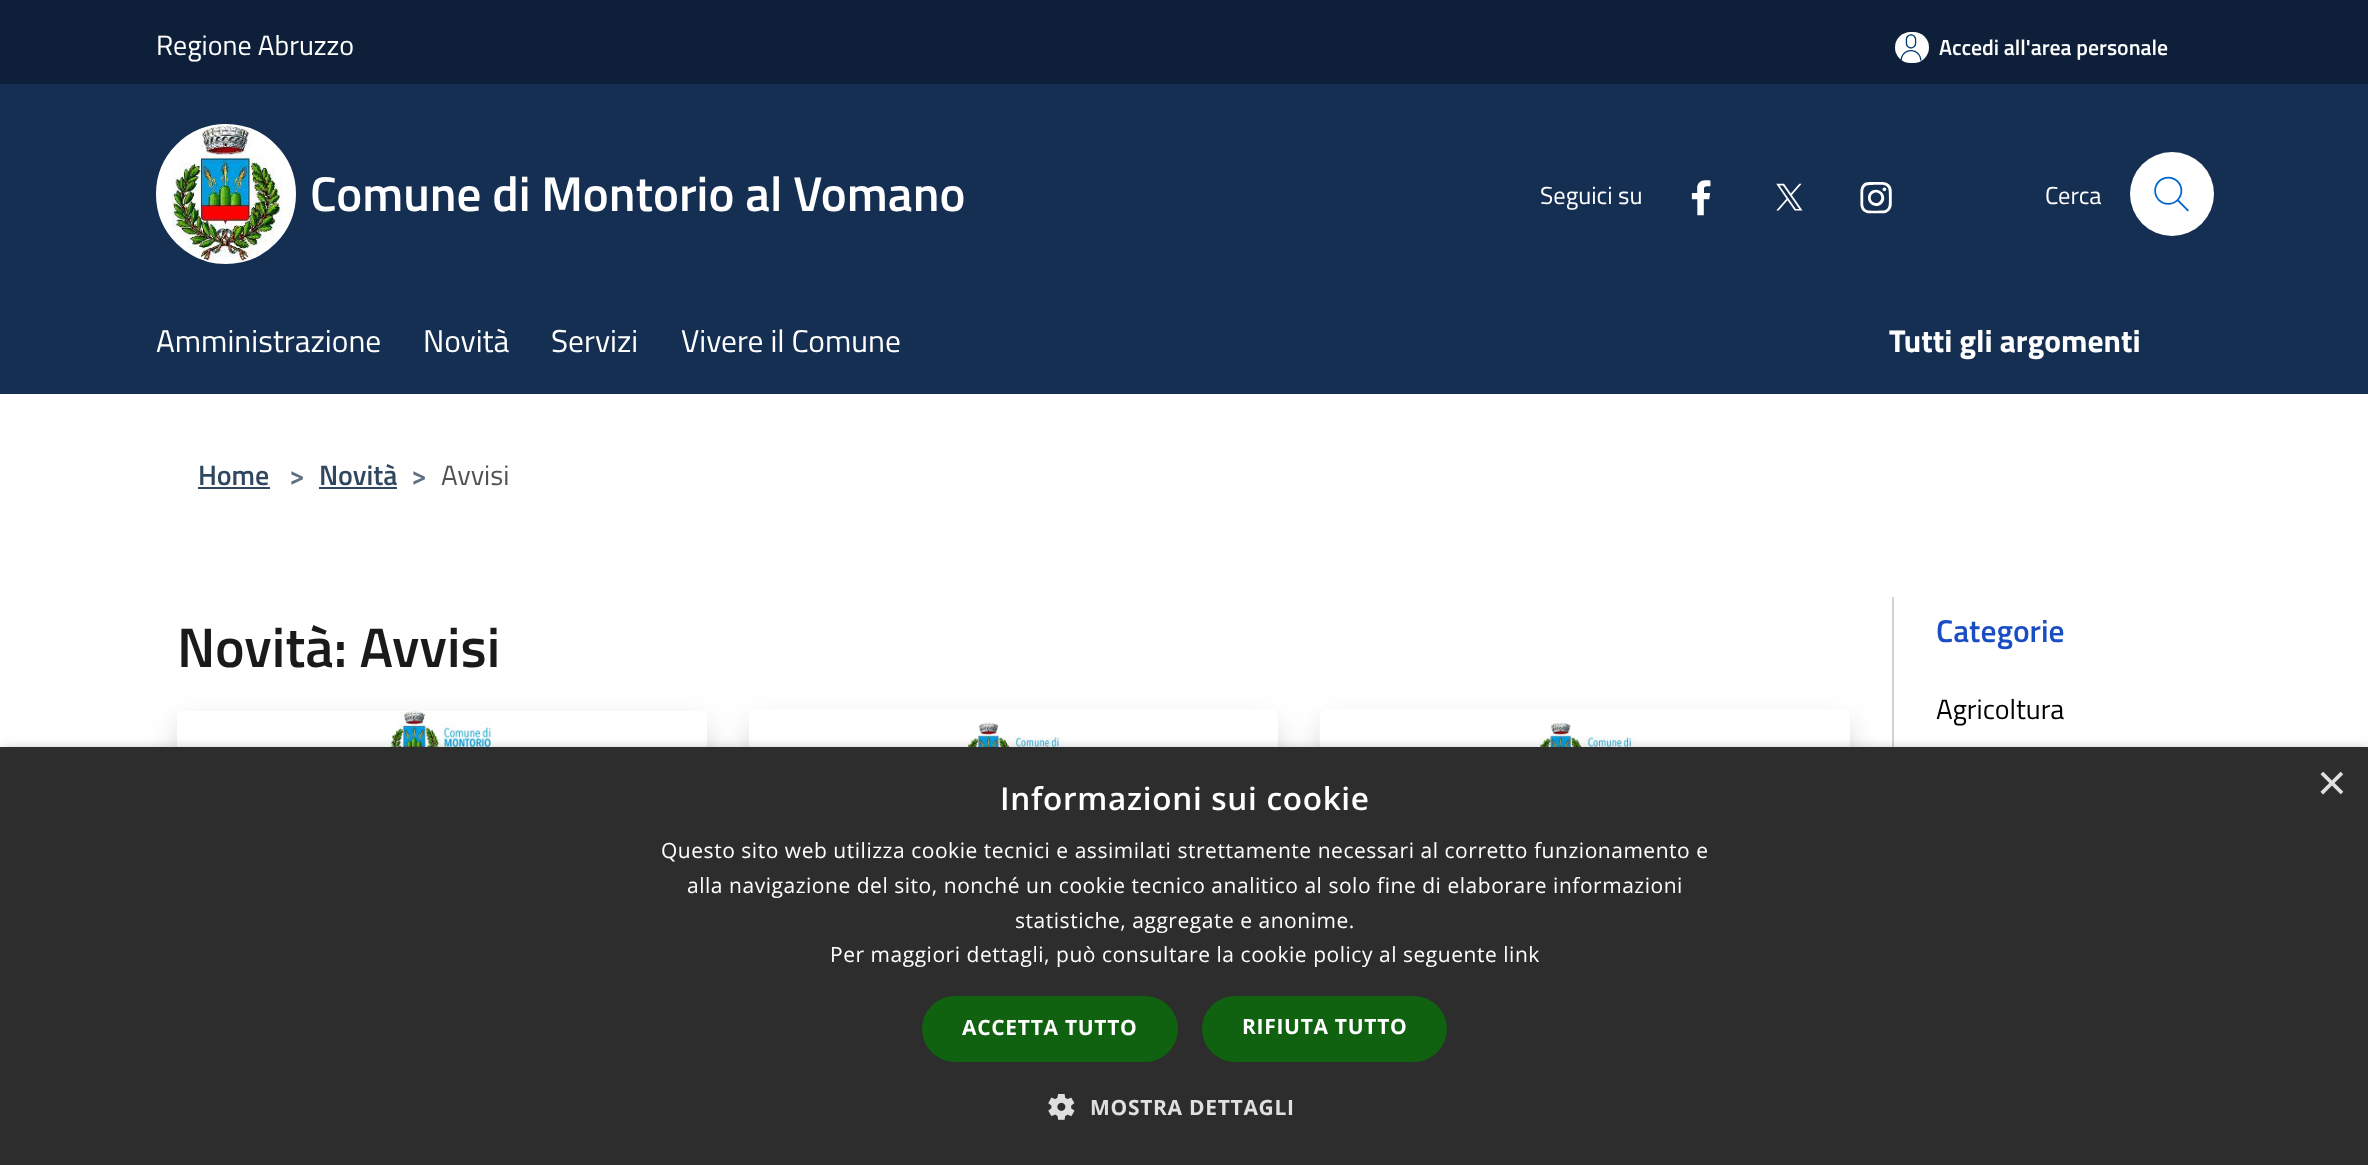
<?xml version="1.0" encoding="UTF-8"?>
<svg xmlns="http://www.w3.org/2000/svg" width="2368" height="1165">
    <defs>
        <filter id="blur1" x="-50%" y="-200%" width="200%" height="500%"><feGaussianBlur stdDeviation="14"/></filter>
        <filter id="blur2" x="-50%" y="-200%" width="200%" height="500%"><feGaussianBlur stdDeviation="7"/></filter>
    </defs>
    <rect width="100%" height="100%" fill="#FFFFFF"/>
    <rect x="0" y="0" width="2368" height="84" fill="#0E2039"/>
    <text x="156" y="55" font-family="Titillium Web" font-size="28" fill="#FFFFFF">Regione Abruzzo</text>
    <rect x="1895" y="32" width="34" height="31" rx="15.5" fill="#FFFFFF"/>
    <image x="1900" y="34" width="22" height="27" href="img_01.png"/>
    <text x="1939" y="55" font-family="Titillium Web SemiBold" font-size="21.75" font-weight="600" fill="#FFFFFF">Accedi all'area personale</text>
    <rect x="0" y="84" width="2368" height="310" fill="#152F52"/>
    <circle cx="226" cy="194" r="69" fill="#FFFFFF" stroke="#FFFFFF" stroke-width="2"/>
    <image x="171" y="126" width="118" height="135" href="img_02.png"/>
    <text x="310" y="211" font-family="Titillium Web SemiBold" font-size="49" font-weight="600" fill="#FFFFFF">Comune di Montorio al Vomano</text>
    <text x="1540" y="204" font-family="Titillium Web" font-size="24.5" fill="#FFFFFF">Seguici su</text>
    <image x="1691" y="180" width="20" height="36" href="img_03.png"/>
    <image x="1776" y="183" width="27" height="28" href="img_04.png"/>
    <image x="1860" y="182" width="32" height="32" href="img_05.png"/>
    <text x="2045" y="204" font-family="Titillium Web" font-size="24.5" fill="#FFFFFF">Cerca</text>
    <circle cx="2172" cy="194" r="42" fill="#FFFFFF"/>
    <image x="2154" y="176" width="35" height="36" href="img_06.png"/>
    <text x="156" y="352" font-family="Titillium Web" font-size="31.5" fill="#FFFFFF">Amministrazione</text>
    <text x="423" y="352" font-family="Titillium Web" font-size="31.5" fill="#FFFFFF">Novità</text>
    <text x="551" y="352" font-family="Titillium Web" font-size="31.5" fill="#FFFFFF">Servizi</text>
    <text x="681" y="352" font-family="Titillium Web" font-size="31.5" fill="#FFFFFF">Vivere il Comune</text>
    <text x="1889" y="352" font-family="Titillium Web" font-size="31.5" font-weight="700" fill="#FFFFFF">Tutti gli argomenti</text>
    <text x="198" y="485" font-family="Titillium Web SemiBold" font-size="28" font-weight="600" fill="#30475F">Home</text>
    <rect x="198" y="487" width="72" height="2" fill="#30475F"/>
    <text x="289" y="485" font-family="Titillium Web SemiBold" font-size="28" font-weight="600" fill="#5D7083">&gt;</text>
    <text x="319" y="485" font-family="Titillium Web SemiBold" font-size="28" font-weight="600" fill="#30475F">Novità</text>
    <rect x="319" y="487" width="78" height="2" fill="#30475F"/>
    <text x="411" y="485" font-family="Titillium Web SemiBold" font-size="28" font-weight="600" fill="#5D7083">&gt;</text>
    <text x="441" y="485" font-family="Titillium Web" font-size="28" fill="#525252">Avvisi</text>
    <text x="177" y="667" font-family="Titillium Web SemiBold" font-size="56" font-weight="600" fill="#1A1A1A">Novità: Avvisi</text>
    <rect x="177" y="723" width="530" height="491" rx="7" fill="#000000" fill-opacity="0.15" filter="url(#blur1)"/>
    <image x="176" y="711" width="531" height="36" href="img_07.png"/>
    <rect x="749" y="723" width="529" height="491" rx="7" fill="#000000" fill-opacity="0.15" filter="url(#blur1)"/>
    <rect x="749" y="709" width="529" height="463" rx="7" fill="#FFFFFF"/>
    <image x="749" y="722" width="529" height="25" href="img_08.png"/>
    <rect x="1892" y="597" width="2" height="150" fill="#D3D3D3"/>
    <rect x="1320" y="723" width="530" height="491" rx="7" fill="#000000" fill-opacity="0.15" filter="url(#blur1)"/>
    <rect x="1320" y="709" width="530" height="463" rx="7" fill="#FFFFFF"/>
    <image x="1319" y="722" width="531" height="25" href="img_09.png"/>
    <text x="1936" y="642" font-family="Titillium Web SemiBold" font-size="31.5" font-weight="600" fill="#194DC3">Categorie</text>
    <text x="1936" y="719" font-family="Titillium Web" font-size="28" fill="#000000">Agricoltura</text>
    <rect x="2" y="751" width="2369" height="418" fill="#000000" fill-opacity="0.35" filter="url(#blur2)"/>
    <rect x="0" y="747" width="2368" height="418" fill="#2D2D2D"/>
    <text x="1000" y="810" font-family="Open Sans" font-size="31.5" font-weight="600" letter-spacing="0.7" fill="#FFFFFF">Informazioni sui cookie</text>
    <text x="2317" y="800" font-family="Liberation Sans" font-size="51" fill="#E0E0E0">×</text>
    <text x="661" y="858" font-family="Open Sans" font-size="21" letter-spacing="0.53" fill="#FFFFFF">Questo sito web utilizza cookie tecnici e assimilati strettamente necessari al corretto funzionamento e</text>
    <text x="687" y="893" font-family="Open Sans" font-size="21" letter-spacing="0.53" fill="#FFFFFF">alla navigazione del sito, nonché un cookie tecnico analitico al solo fine di elaborare informazioni</text>
    <text x="1015" y="928" font-family="Open Sans" font-size="21" letter-spacing="0.53" fill="#FFFFFF">statistiche, aggregate e anonime.</text>
    <text x="830" y="962" font-family="Open Sans" font-size="21" letter-spacing="0.53" fill="#FFFFFF">Per maggiori dettagli, può consultare la cookie policy al seguente link</text>
    <rect x="922" y="996" width="256" height="66" rx="33" fill="#106110"/>
    <text x="962" y="1035" font-family="Open Sans" font-size="21" font-weight="700" letter-spacing="0.7" fill="#FFFFFF">ACCETTA TUTTO</text>
    <rect x="1202" y="996" width="245" height="66" rx="33" fill="#106110"/>
    <text x="1242" y="1034" font-family="Open Sans" font-size="21" font-weight="700" letter-spacing="0.7" fill="#FFFFFF">RIFIUTA TUTTO</text>
    <image x="1048" y="1094" width="27" height="26" href="img_10.png"/>
    <text x="1090" y="1115" font-family="Open Sans" font-size="21" font-weight="700" letter-spacing="0.7" fill="#E0E0E0">MOSTRA DETTAGLI</text>
</svg>
